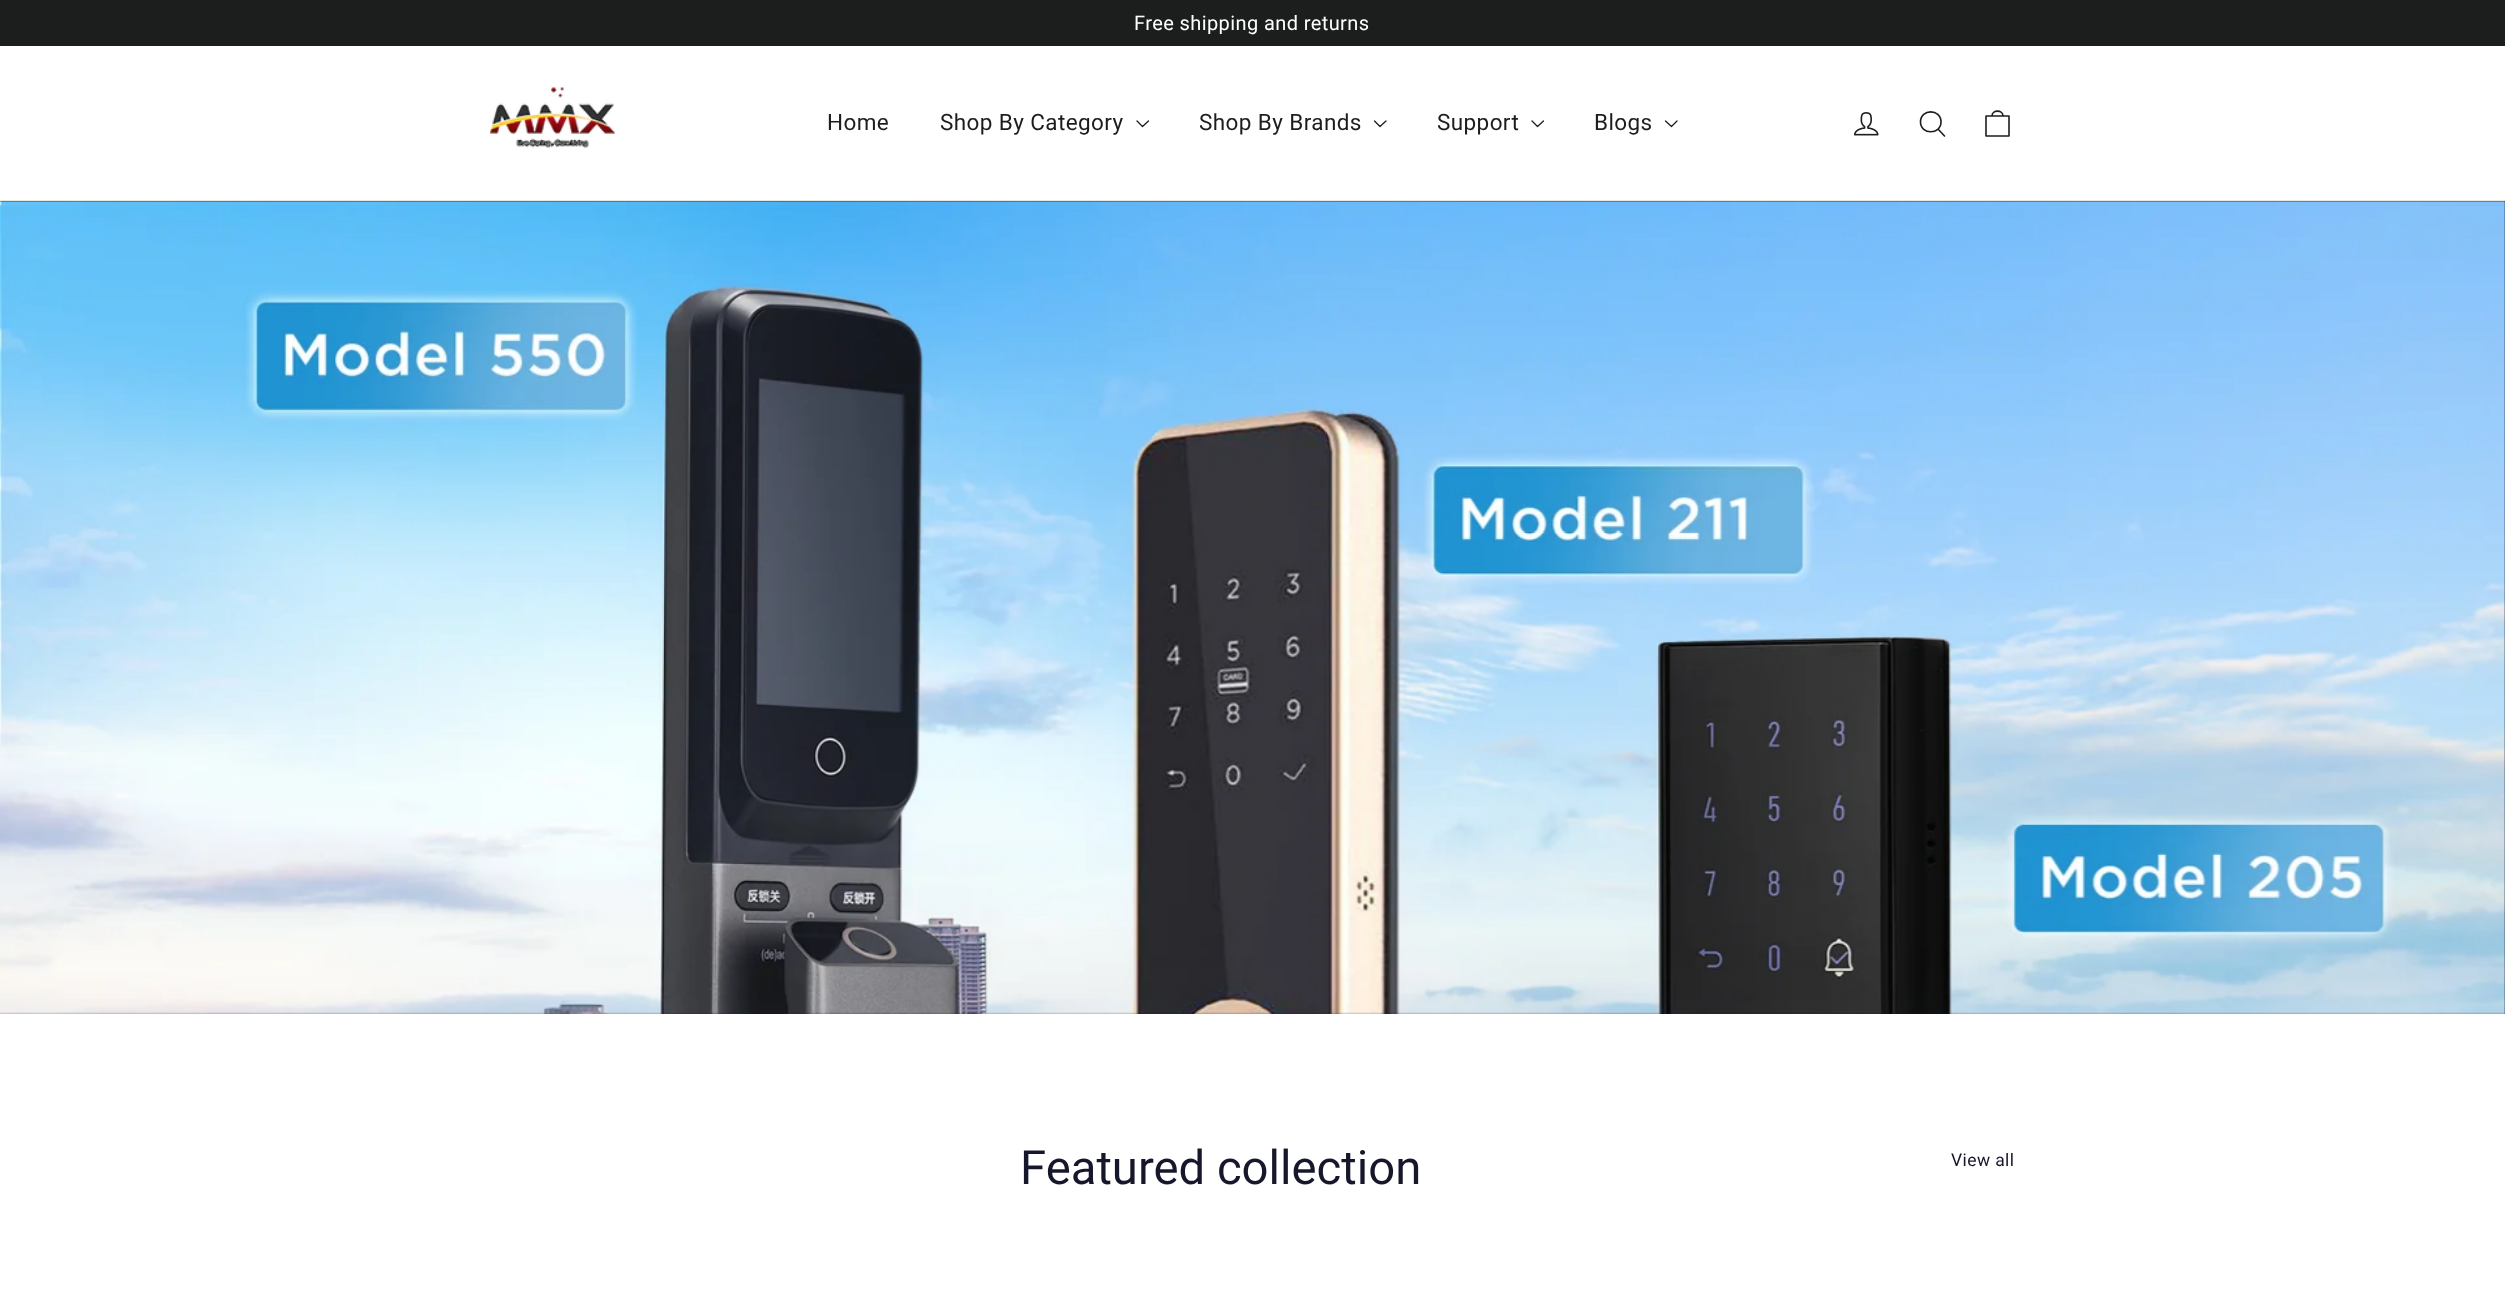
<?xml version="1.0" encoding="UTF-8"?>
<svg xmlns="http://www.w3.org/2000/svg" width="2505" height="1315">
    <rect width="100%" height="100%" fill="#FFFFFF"/>
    <rect x="0" y="0" width="2505" height="46" fill="#1C1D1D"/>
    <text x="1134" y="30" font-family="Roboto" font-size="20" letter-spacing="0.4" fill="#FFFFFF">Free shipping and returns</text>
    <rect x="0" y="200" width="2505" height="1" fill="#E8E8E1"/>
    <image x="490" y="87" width="125" height="61" href="img_01.png"/>
    <text x="827" y="130" font-family="Roboto" font-size="22.5" letter-spacing="0.4" fill="#1C1D1D">Home</text>
    <text x="940" y="130" font-family="Roboto" font-size="22.5" letter-spacing="0.4" fill="#1C1D1D">Shop By Category</text>
    <path d="M 1137 121 L 1142.5 126.5 L 1148.5 121" fill="none" stroke="#1C1D1D" stroke-width="1.3" stroke-linecap="round" stroke-linejoin="round"/>
    <text x="1199" y="130" font-family="Roboto" font-size="22.5" letter-spacing="0.4" fill="#1C1D1D">Shop By Brands</text>
    <path d="M 1374.5 121 L 1380 126.5 L 1386 121" fill="none" stroke="#1C1D1D" stroke-width="1.3" stroke-linecap="round" stroke-linejoin="round"/>
    <text x="1437" y="130" font-family="Roboto" font-size="22.5" letter-spacing="0.4" fill="#1C1D1D">Support</text>
    <path d="M 1532 121 L 1537.5 126.5 L 1543.5 121" fill="none" stroke="#1C1D1D" stroke-width="1.3" stroke-linecap="round" stroke-linejoin="round"/>
    <text x="1594" y="130" font-family="Roboto" font-size="22.5" letter-spacing="0.4" fill="#1C1D1D">Blogs</text>
    <path d="M 1665.5 121 L 1671.5 126.5 L 1677 121" fill="none" stroke="#1C1D1D" stroke-width="1.3" stroke-linecap="round" stroke-linejoin="round"/>
    <image x="1854" y="112" width="25" height="24" href="img_02.png"/>
    <path d="M 1941 122 C 1941 135 1920.5 135 1920.5 122 C 1920.5 108.5 1941 108.5 1941 122 Z M 1944.5 136 L 1938 129" fill="none" stroke="#1C1D1D" stroke-width="1.6" stroke-linecap="round" stroke-linejoin="round"/>
    <path d="M 1986 116 H 2009 V 136 H 1986 Z M 1992 116 C 1992 109.5 2003 109.5 2003 116" fill="none" stroke="#1C1D1D" stroke-width="1.6" stroke-linecap="round" stroke-linejoin="round"/>
    <rect x="0" y="201" width="2505" height="813" fill="#17172C"/>
    <image x="0" y="201" width="2505" height="813" href="img_03.png"/>
    <text x="1020" y="1184" font-family="Roboto" font-size="47.25" fill="#17172C">Featured collection</text>
    <text x="1951" y="1166" font-family="Roboto" font-size="17.5" letter-spacing="0.4" fill="#17172C">View all</text>
</svg>
